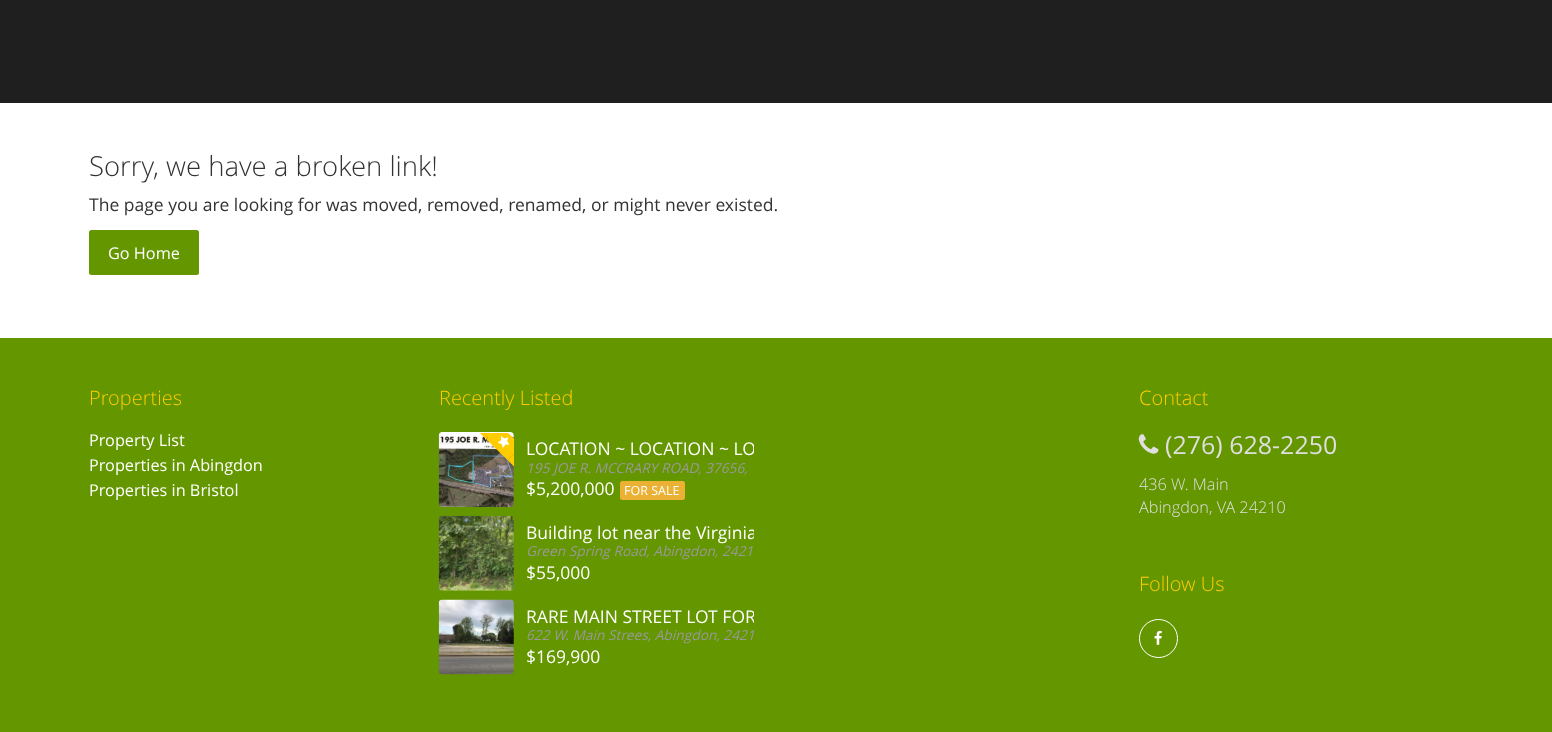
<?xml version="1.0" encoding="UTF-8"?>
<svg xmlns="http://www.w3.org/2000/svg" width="1552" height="732">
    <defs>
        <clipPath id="clip1"><rect x="526" y="433" width="228" height="70"/></clipPath>
        <clipPath id="clip2"><rect x="526" y="516" width="228" height="70"/></clipPath>
        <clipPath id="clip3"><rect x="526" y="600" width="228" height="70"/></clipPath>
    </defs>
    <rect width="100%" height="100%" fill="#FFFFFF"/>
    <rect x="0" y="0" width="1552" height="103" fill="#1F1F1F"/>
    <text x="89" y="176" font-family="Open Sans" font-size="27.5" font-weight="300" fill="#333333">Sorry, we have a broken link!</text>
    <text x="89" y="211" font-family="Open Sans" font-size="17.5" fill="#333333">The page you are looking for was moved, removed, renamed, or might never existed.</text>
    <rect x="89" y="230" width="110" height="45" rx="2.5" fill="#649600"/>
    <text x="108" y="259" font-family="Open Sans" font-size="16.25" fill="#FFFFFF">Go Home</text>
    <rect x="0" y="338" width="1552" height="394" fill="#649600"/>
    <text x="89" y="405" font-family="Open Sans" font-size="20" font-weight="300" fill="#FFCC00">Properties</text>
    <text font-family="Open Sans" font-size="16.25" fill="#FFFFFF">
        <tspan x="89" y="446">Property List</tspan>
        <tspan x="89" y="471">Properties in Abingdon</tspan>
        <tspan x="89" y="496">Properties in Bristol</tspan>
    </text>
    <text x="439" y="405" font-family="Open Sans" font-size="20" font-weight="300" fill="#FFCC00">Recently Listed</text>
    <image x="438" y="432" width="76" height="75" href="img_01.png"/>
    <path d="M 486 439 L 492 433 H 480 Z" fill="#FFCC00"/>
    <path d="M 514 453.5 L 507.5 460 L 486 439 L 492 433 H 508 L 514 438.5 Z" fill="#FFCC00"/>
    <image x="497" y="436" width="13" height="12" href="img_02.png"/>
    <path d="M 507.5 460 L 514 453.5 V 466.5 Z" fill="#FFCC00"/>
    <g clip-path="url(#clip1)">
        <text x="526" y="455" font-family="Open Sans" font-size="17.5" fill="#FFFFFF">LOCATION ~ LOCATION ~ LO</text>
    </g>
    <text x="526" y="473" font-family="Open Sans" font-size="13.75" font-style="italic" fill="#999999">195 JOE R. MCCRARY ROAD, 37656,</text>
    <text x="526" y="495" font-family="Open Sans" font-size="17.5" fill="#FFFFFF">$5,200,000</text>
    <rect x="620" y="481" width="65" height="19" rx="2.5" fill="#EAB134"/>
    <text x="624" y="495" font-family="Open Sans" font-size="12.5" fill="#FFFFFF">FOR SALE</text>
    <image x="438" y="515" width="76" height="76" href="img_03.png"/>
    <g clip-path="url(#clip2)">
        <text x="526" y="539" font-family="Open Sans" font-size="17.5" fill="#FFFFFF">Building lot near the Virginia</text>
    </g>
    <text x="526" y="556" font-family="Open Sans" font-size="13.75" font-style="italic" fill="#999999">Green Spring Road, Abingdon, 2421</text>
    <text x="526" y="579" font-family="Open Sans" font-size="17.5" fill="#FFFFFF">$55,000</text>
    <image x="438" y="599" width="76" height="76" href="img_04.png"/>
    <g clip-path="url(#clip3)">
        <text x="526" y="623" font-family="Open Sans" font-size="17.5" fill="#FFFFFF">RARE MAIN STREET LOT FOR</text>
    </g>
    <text x="526" y="640" font-family="Open Sans" font-size="13.75" font-style="italic" fill="#999999">622 W. Main Strees, Abingdon, 2421</text>
    <text x="526" y="663" font-family="Open Sans" font-size="17.5" fill="#FFFFFF">$169,900</text>
    <text x="1139" y="405" font-family="Open Sans" font-size="20" font-weight="300" fill="#FFCC00">Contact</text>
    <image x="1138" y="434" width="21" height="20" href="img_05.png"/>
    <text x="1165" y="454" font-family="Open Sans" font-size="25" fill="#DFDFDF">(276) 628-2250</text>
    <text font-family="Open Sans" font-size="16.25" font-weight="300" fill="#DFDFDF">
        <tspan x="1139" y="490">436 W. Main</tspan>
        <tspan x="1139" y="513">Abingdon, VA 24210</tspan>
    </text>
    <text x="1139" y="591" font-family="Open Sans" font-size="20" font-weight="300" fill="#FFCC00">Follow Us</text>
    <circle cx="1158.5" cy="638.5" r="19" fill="none" stroke="#FFFFFF"/>
    <image x="1154" y="630" width="8" height="15" href="img_06.png"/>
</svg>
